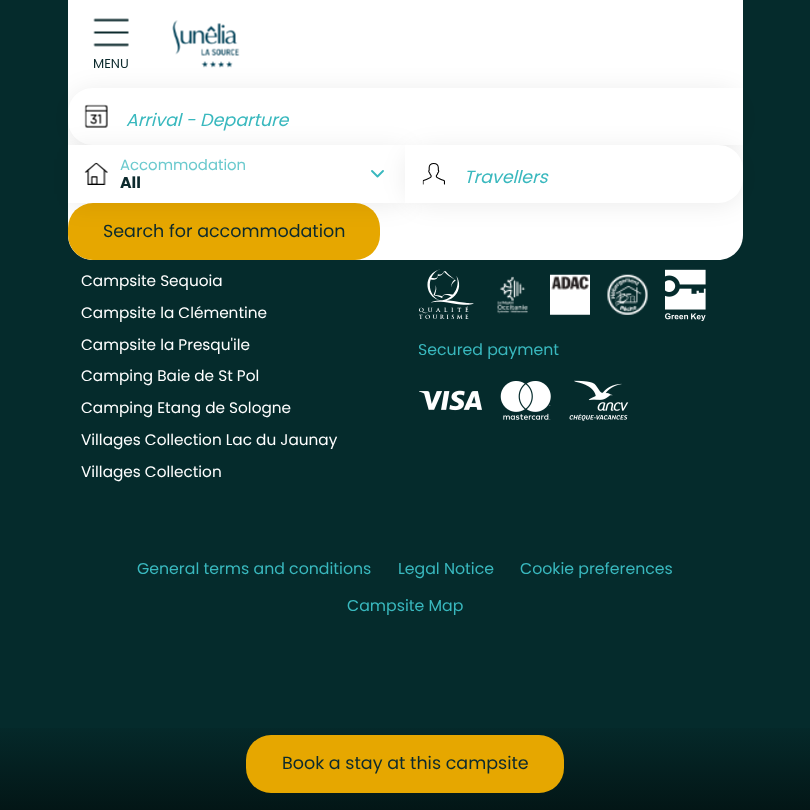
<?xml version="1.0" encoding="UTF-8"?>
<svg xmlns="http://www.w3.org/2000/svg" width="810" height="810">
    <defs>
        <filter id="blur1" x="-50%" y="-200%" width="200%" height="500%"><feGaussianBlur stdDeviation="12.5"/></filter>
        <clipPath id="clip1"><rect x="81" y="258" width="312" height="238" rx="25"/></clipPath>
        <linearGradient id="g1" gradientUnits="userSpaceOnUse" x1="405" y1="718" x2="405" y2="810"><stop offset="0" stop-color="#052B2C"/><stop offset="1" stop-color="#031616"/></linearGradient>
    </defs>
    <rect width="100%" height="100%" fill="#052B2C"/>
    <path d="M 68 0 H 743 V 235 C 743 249 732 260 718 260 H 93 C 79 260 68 249 68 235 Z" fill="#FFFFFF"/>
    <image x="93" y="18" width="36" height="29" href="img_01.png"/>
    <text x="93" y="68" font-family="Poppins" font-size="13" fill="#0C2A2D">MENU</text>
    <image x="172" y="20" width="68" height="48" href="img_02.png"/>
    <rect x="68" y="90" width="675" height="58" rx="25" fill="#000000" fill-opacity="0.08" filter="url(#blur1)"/>
    <path d="M 93 88 H 743 V 145 H 93 C 79 145 68 134 68 120 V 113 C 68 99 79 88 93 88 Z" fill="#FFFFFF"/>
    <image x="84" y="104" width="24" height="24" href="img_03.png"/>
    <text x="126" y="126" font-family="Poppins" font-size="17.5" font-style="italic" fill="#39B8BE">Arrival - Departure</text>
    <rect x="68" y="203" width="312" height="57" rx="25" fill="#E6A700"/>
    <rect x="68" y="148" width="337" height="57" fill="#000000" fill-opacity="0.08" filter="url(#blur1)"/>
    <rect x="68" y="145" width="337" height="58" fill="#FFFFFF"/>
    <image x="84" y="162" width="24" height="23" href="img_04.png"/>
    <text x="120" y="170" font-family="Poppins" font-size="14.9" fill="#6BCACE">Accommodation</text>
    <path d="M 372 171 L 377.5 176.5 L 383 171" fill="none" stroke="#39B8BE" stroke-width="1.9" stroke-linecap="round" stroke-linejoin="round"/>
    <text x="120" y="188" font-family="Poppins" font-size="15.75" font-weight="700" fill="#0C2A2D">All</text>
    <rect x="405" y="148" width="338" height="57" rx="25" fill="#000000" fill-opacity="0.08" filter="url(#blur1)"/>
    <path d="M 405 145 H 718 C 732 145 743 156 743 170 V 178 C 743 192 732 203 718 203 H 405 Z" fill="#FFFFFF"/>
    <image x="422" y="163" width="23" height="22" href="img_05.png"/>
    <text x="464" y="183" font-family="Poppins" font-size="17.5" font-style="italic" fill="#39B8BE">Travellers</text>
    <text x="103" y="237" font-family="Poppins" font-size="17.5" fill="#0C2A2D">Search for accommodation</text>
    <g clip-path="url(#clip1)">
        <text x="81" y="286" font-family="Poppins" font-size="15.3" fill="#FFFFFF">Campsite Sequoia</text>
    </g>
    <text x="81" y="318" font-family="Poppins" font-size="15.3" fill="#FFFFFF">Campsite la Clémentine</text>
    <text x="81" y="350" font-family="Poppins" font-size="15.3" fill="#FFFFFF">Campsite la Presqu'ile</text>
    <text x="81" y="381" font-family="Poppins" font-size="15.3" fill="#FFFFFF">Camping Baie de St Pol</text>
    <text x="81" y="413" font-family="Poppins" font-size="15.3" fill="#FFFFFF">Camping Etang de Sologne</text>
    <text x="81" y="445" font-family="Poppins" font-size="15.3" fill="#FFFFFF">Villages Collection Lac du Jaunay</text>
    <text x="81" y="477" font-family="Poppins" font-size="15.3" fill="#FFFFFF">Villages Collection</text>
    <image x="419" y="269" width="55" height="50" href="img_06.png"/>
    <image x="497" y="276" width="31" height="38" href="img_07.png"/>
    <image x="550" y="274" width="40" height="41" href="img_08.png"/>
    <image x="607" y="274" width="41" height="41" href="img_09.png"/>
    <image x="665" y="269" width="41" height="52" href="img_10.png"/>
    <text x="418" y="355" font-family="Poppins" font-size="15.75" fill="#39B8BE">Secured payment</text>
    <image x="419" y="390" width="63" height="21" href="img_11.png"/>
    <image x="500" y="381" width="51" height="39" href="img_12.png"/>
    <image x="569" y="380" width="60" height="41" href="img_13.png"/>
    <text x="137" y="574" font-family="Poppins" font-size="15.75" fill="#39B8BE">General terms and conditions</text>
    <text x="398" y="574" font-family="Poppins" font-size="15.75" fill="#39B8BE">Legal Notice</text>
    <text x="520" y="574" font-family="Poppins" font-size="15.75" fill="#39B8BE">Cookie preferences</text>
    <text x="347" y="611" font-family="Poppins" font-size="15.75" fill="#39B8BE">Campsite Map</text>
    <rect x="0" y="728" width="810" height="82" fill="url(#g1)"/>
    <rect x="246" y="735" width="318" height="58" rx="25" fill="#E6A700"/>
    <text x="282" y="769" font-family="Poppins" font-size="17.5" fill="#0C2A2D">Book a stay at this campsite</text>
</svg>
